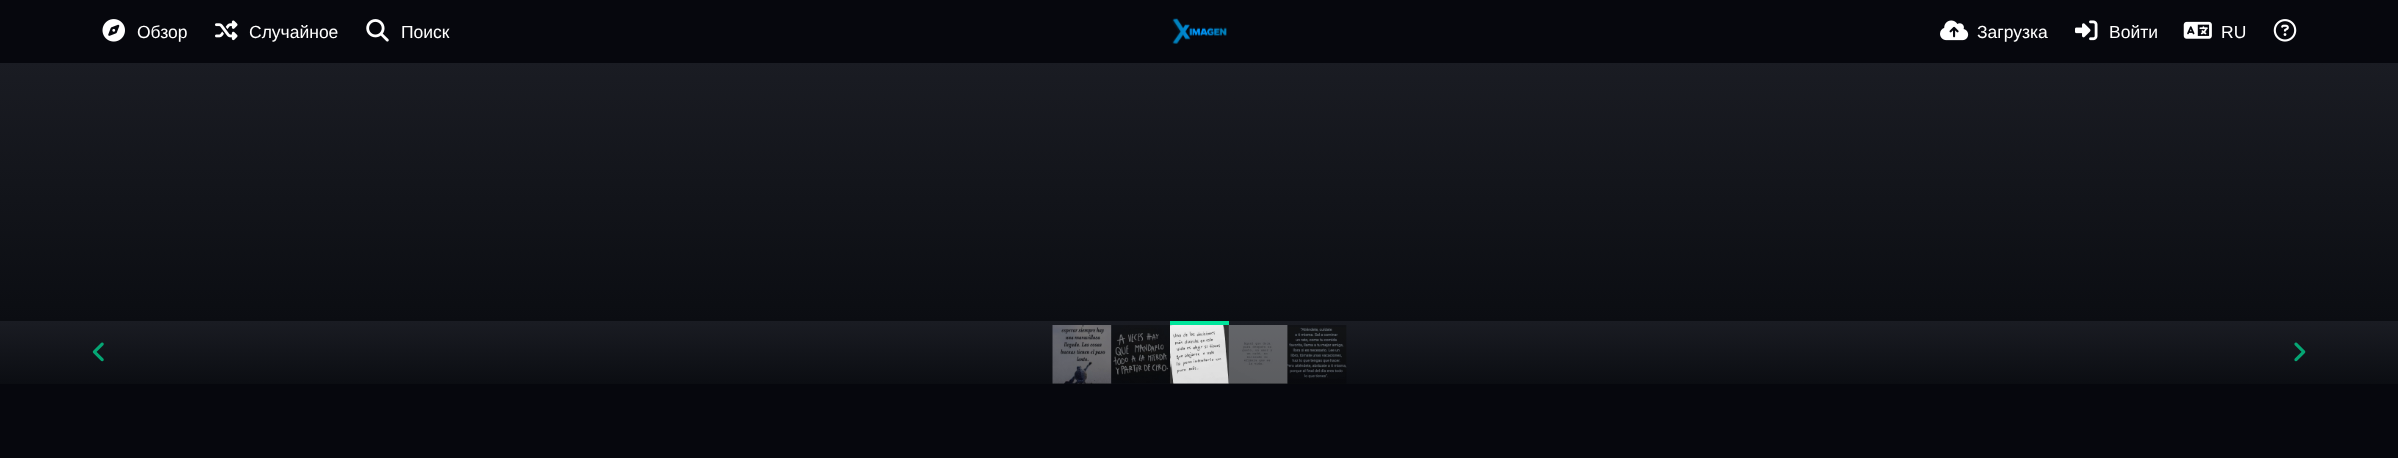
<?xml version="1.0" encoding="UTF-8"?>
<svg xmlns="http://www.w3.org/2000/svg" width="2398" height="458">
    <defs>
        <linearGradient id="g1" gradientUnits="userSpaceOnUse" x1="1199" y1="62" x2="1199" y2="321"><stop offset="0" stop-color="#1A1C23"/><stop offset="1" stop-color="#0B0D12"/></linearGradient>
        <linearGradient id="g2" gradientUnits="userSpaceOnUse" x1="1199" y1="321" x2="1199" y2="384"><stop offset="0" stop-color="#1A1C23"/><stop offset="1" stop-color="#0B0D12"/></linearGradient>
    </defs>
    <rect width="100%" height="100%" fill="#06070D"/>
    <image x="102" y="19" width="23" height="23" href="img_01.png"/>
    <text x="137" y="38" font-family="Liberation Sans" font-size="17.5" fill="#FFFFFF">Обзор</text>
    <image x="215" y="20" width="23" height="21" href="img_02.png"/>
    <text x="249" y="38" font-family="Liberation Sans" font-size="17.5" fill="#FFFFFF">Случайное</text>
    <image x="366" y="19" width="23" height="23" href="img_03.png"/>
    <text x="401" y="38" font-family="Liberation Sans" font-size="17.5" fill="#FFFFFF">Поиск</text>
    <image x="1172" y="18" width="55" height="26" href="img_04.png"/>
    <image x="1940" y="20" width="29" height="21" href="img_05.png"/>
    <text x="1977" y="38" font-family="Liberation Sans" font-size="17.5" fill="#FFFFFF">Загрузка</text>
    <image x="2075" y="20" width="23" height="21" href="img_06.png"/>
    <text x="2109" y="38" font-family="Liberation Sans" font-size="17.5" fill="#FFFFFF">Войти</text>
    <image x="2183" y="21" width="29" height="18" href="img_07.png"/>
    <text x="2221" y="38" font-family="Liberation Sans" font-size="17.5" fill="#FFFFFF">RU</text>
    <image x="2273" y="19" width="24" height="23" href="img_08.png"/>
    <rect x="0" y="63" width="2398" height="258" fill="url(#g1)"/>
    <rect x="0" y="321" width="2398" height="63" fill="url(#g2)"/>
    <image x="1052" y="325" width="60" height="59" href="img_09.png"/>
    <image x="1111" y="325" width="59" height="58" href="img_10.png"/>
    <rect x="1170" y="321" width="59" height="4" fill="#00E59B"/>
    <image x="1170" y="325" width="59" height="59" href="img_11.png"/>
    <image x="1228" y="325" width="60" height="59" href="img_12.png"/>
    <image x="1287" y="325" width="60" height="59" href="img_13.png"/>
    <image x="92" y="342" width="12" height="20" href="img_14.png"/>
    <image x="2294" y="342" width="12" height="20" href="img_15.png"/>
</svg>
